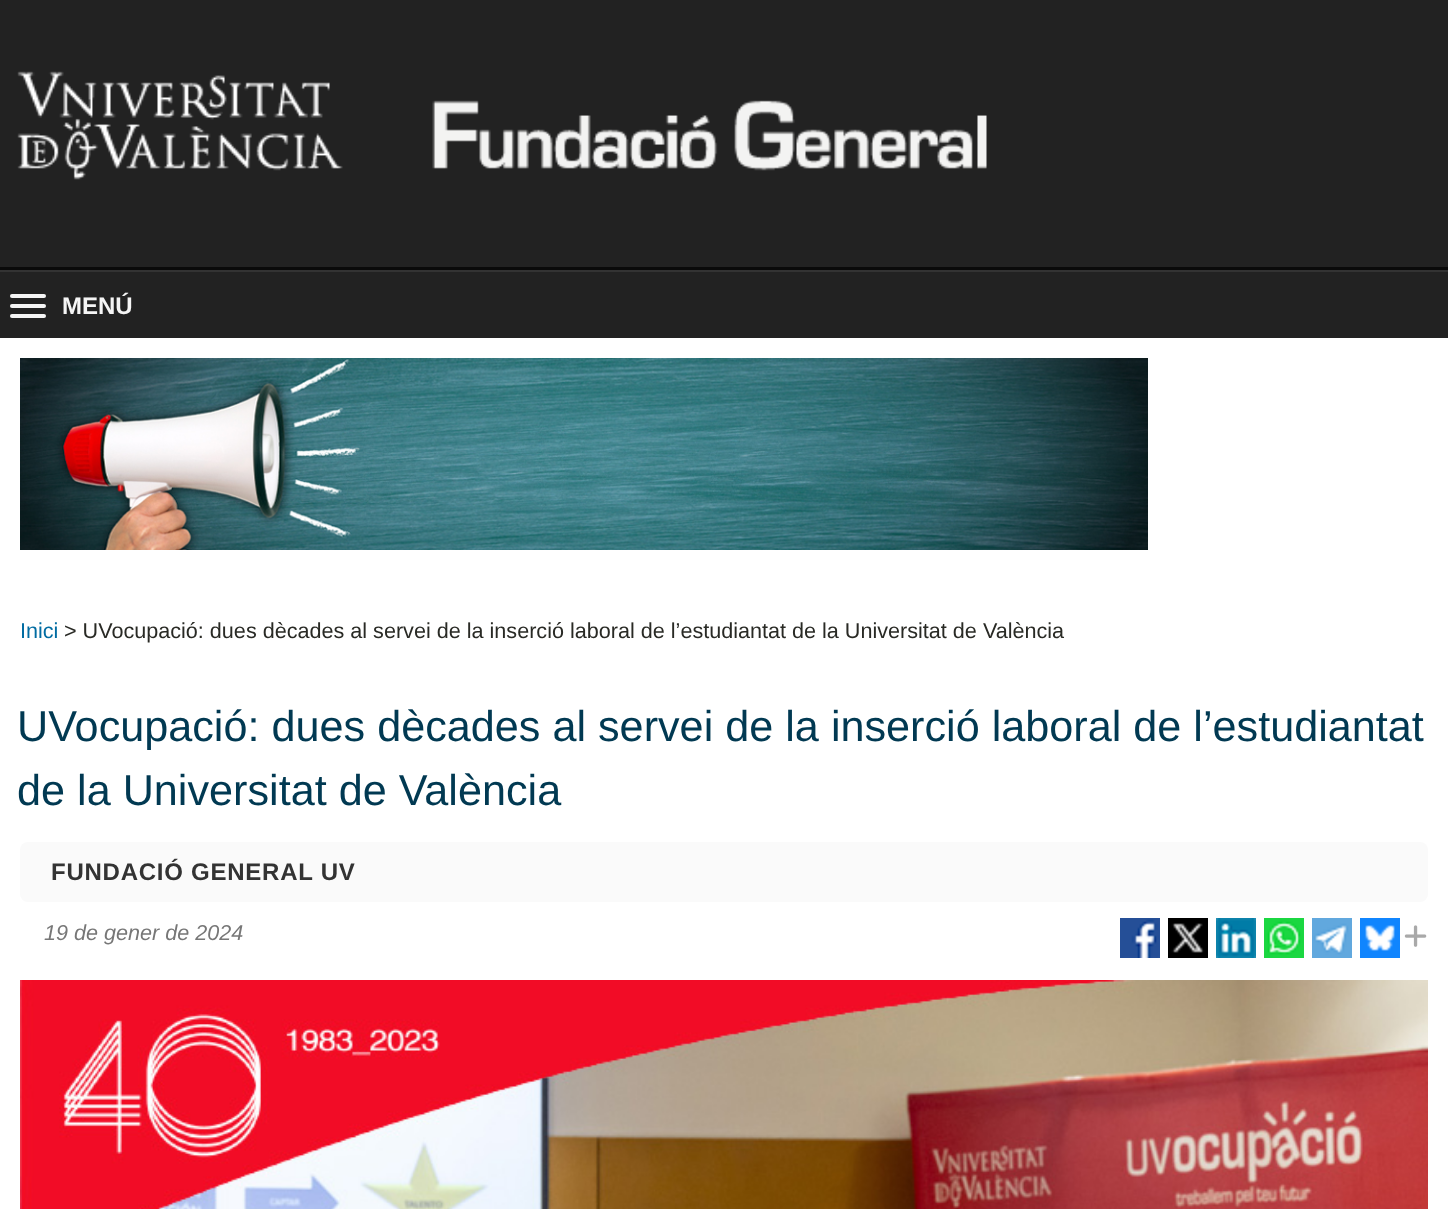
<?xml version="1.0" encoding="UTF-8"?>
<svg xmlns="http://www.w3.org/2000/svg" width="1448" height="1209">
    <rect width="100%" height="100%" fill="#FFFFFF"/>
    <rect x="0" y="0" width="1448" height="267" fill="#222222"/>
    <rect x="0" y="267" width="1448" height="3" fill="#0A0A0A"/>
    <image x="17" y="71" width="970" height="109" href="img_01.png"/>
    <rect x="0" y="272" width="1448" height="66" fill="#222222"/>
    <rect x="0" y="270" width="1448" height="2" fill="#333333"/>
    <rect x="10" y="294" width="36" height="4" rx="2" fill="#F5F5F5"/>
    <text x="62" y="314" font-family="Liberation Sans" font-size="24" font-weight="700" fill="#F5F5F5">MENÚ</text>
    <rect x="10" y="304" width="36" height="4" rx="2" fill="#F5F5F5"/>
    <rect x="10" y="314" width="36" height="4" rx="2" fill="#F5F5F5"/>
    <image x="20" y="358" width="1128" height="192" href="img_02.png"/>
    <text x="20" y="638" font-family="Liberation Sans" font-size="21.6" fill="#016CA2">Inici</text>
    <text x="64" y="638" font-family="Liberation Sans" font-size="21.6" fill="#292A25">&gt; UVocupació: dues dècades al servei de la inserció laboral de l’estudiantat de la Universitat de València</text>
    <text font-family="Liberation Sans" font-size="43.2" fill="#013952">
        <tspan x="17" y="741">UVocupació: dues dècades al servei de la inserció laboral de l’estudiantat</tspan>
        <tspan x="17" y="805">de la Universitat de València</tspan>
    </text>
    <rect x="20" y="842" width="1408" height="60" rx="8" fill="#FAFAFA"/>
    <text x="51" y="880" font-family="Liberation Sans" font-size="24" font-weight="700" letter-spacing="0.75" fill="#333333">FUNDACIÓ GENERAL UV</text>
    <text x="44" y="940" font-family="Liberation Sans" font-size="21.6" font-style="italic" fill="#777777">19 de gener de 2024</text>
    <image x="1120" y="918" width="40" height="40" href="img_03.png"/>
    <image x="1168" y="918" width="40" height="40" href="img_04.png"/>
    <image x="1216" y="918" width="40" height="40" href="img_05.png"/>
    <image x="1264" y="918" width="40" height="40" href="img_06.png"/>
    <image x="1312" y="918" width="40" height="40" href="img_07.png"/>
    <image x="1360" y="918" width="40" height="40" href="img_08.png"/>
    <image x="1404" y="925" width="23" height="22" href="img_09.png"/>
    <image x="20" y="980" width="1408" height="229" href="img_10.png"/>
</svg>
